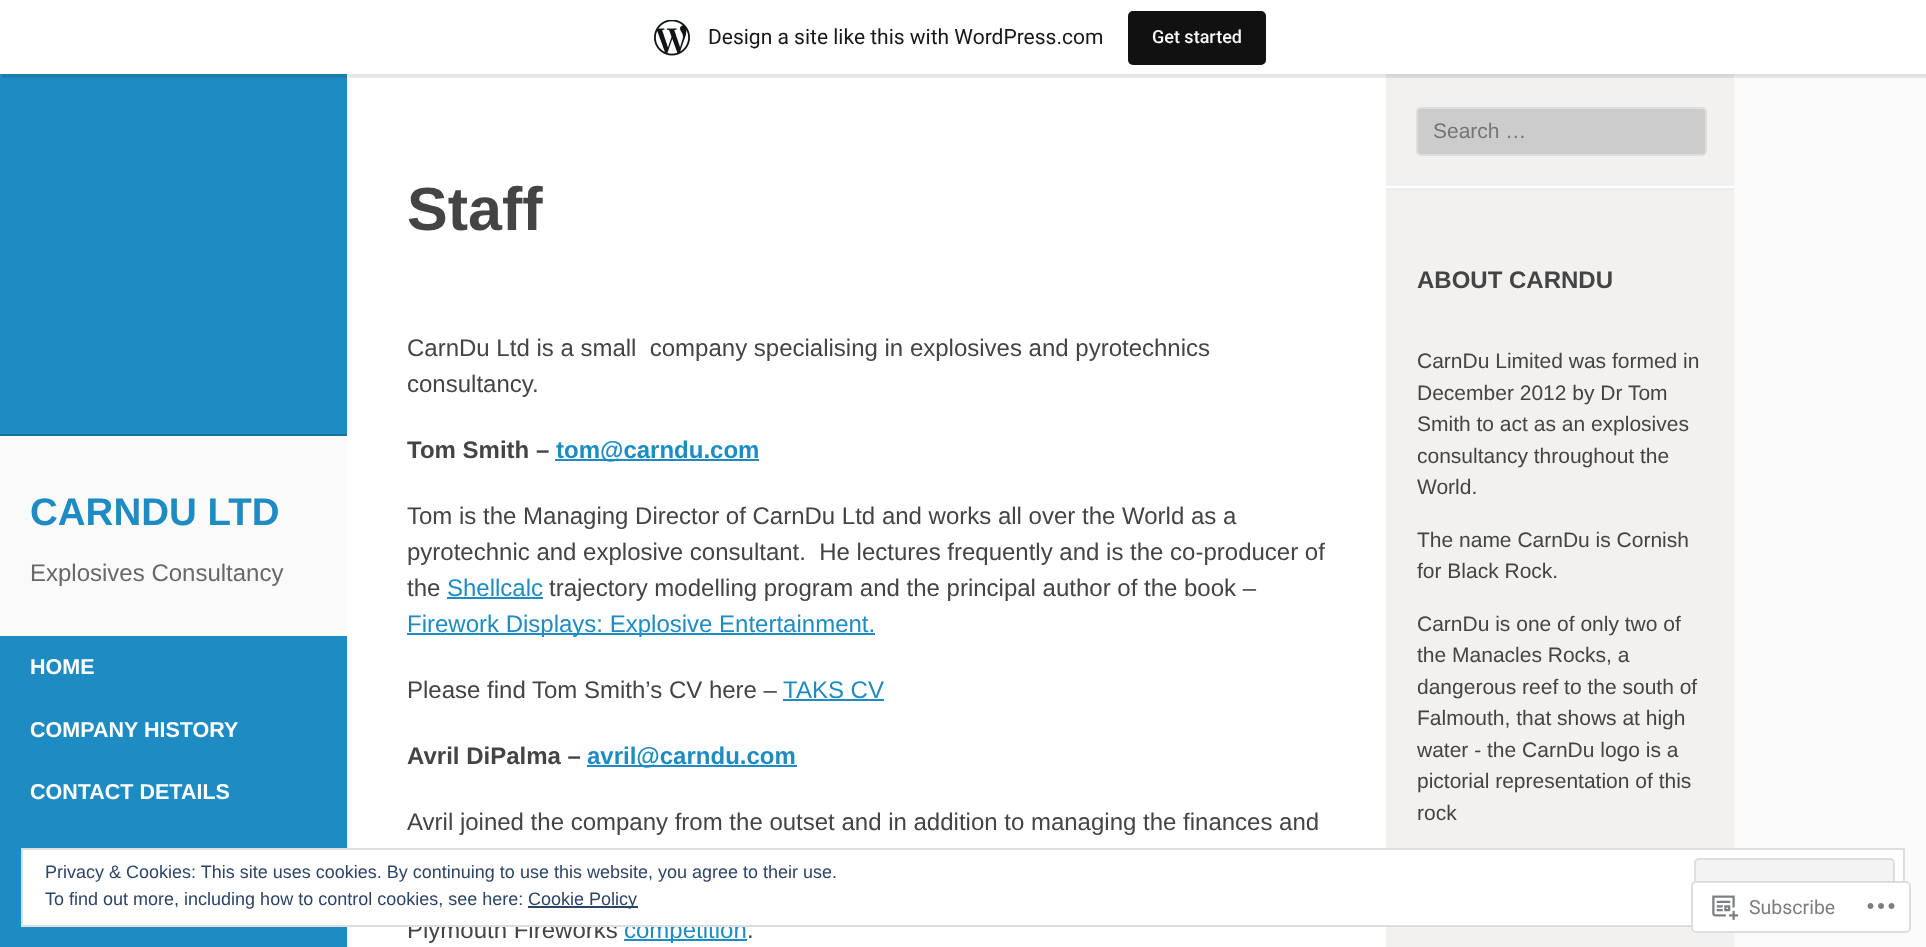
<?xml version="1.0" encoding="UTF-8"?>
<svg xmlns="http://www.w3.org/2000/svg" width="1926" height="947">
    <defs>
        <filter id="blur1" x="-50%" y="-200%" width="200%" height="500%"><feGaussianBlur stdDeviation="1.5"/></filter>
    </defs>
    <rect width="100%" height="100%" fill="#FAFAFA"/>
    <rect x="347" y="74" width="1039" height="873" fill="#FFFFFF"/>
    <rect x="0" y="74" width="347" height="360" fill="#1E8BC3"/>
    <rect x="1386" y="77" width="348" height="870" fill="#F2F1EF"/>
    <rect x="1386" y="74" width="348" height="3" fill="#EEEEEE"/>
    <rect x="0" y="2" width="1926" height="73" fill="#000000" fill-opacity="0.05" filter="url(#blur1)"/>
    <path d="M 2 74 V 78 H 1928 V 5 H 1926 V 74 Z" fill="#000000" fill-opacity="0.08"/>
    <rect x="0" y="0" width="1926" height="74" fill="#FFFFFF"/>
    <image x="654" y="20" width="36" height="36" href="img_01.png"/>
    <text x="708" y="44" font-family="Roboto" font-size="21" fill="#171717">Design a site like this with WordPress.com</text>
    <rect x="1128" y="11" width="138" height="54" rx="5" fill="#111111"/>
    <text x="1152" y="43" font-family="Roboto" font-size="18" font-weight="500" fill="#F6F7F7">Get started</text>
    <rect x="0" y="434" width="347" height="2" fill="#18709D"/>
    <text x="30" y="525" font-family="Arimo" font-size="38.5" font-weight="700" fill="#1E8BC3">CARNDU LTD</text>
    <text x="30" y="581" font-family="Arimo" font-size="24" fill="#686868">Explosives Consultancy</text>
    <rect x="0" y="636" width="347" height="311" fill="#1E8BC3"/>
    <text x="30" y="674" font-family="Arimo" font-size="21.5" font-weight="700" fill="#FFFFFF">HOME</text>
    <text x="30" y="737" font-family="Arimo" font-size="21.5" font-weight="700" fill="#FFFFFF">COMPANY HISTORY</text>
    <text x="30" y="799" font-family="Arimo" font-size="21.5" font-weight="700" fill="#FFFFFF">CONTACT DETAILS</text>
    <text x="407" y="230" font-family="Arimo" font-size="61" font-weight="700" fill="#444444">Staff</text>
    <text font-family="Arimo" font-size="24" fill="#444444" xml:space="preserve"><tspan x="407" y="356">CarnDu Ltd is a small  company specialising in explosives and pyrotechnics</tspan><tspan x="407" y="392">consultancy.</tspan></text>
    <text x="407" y="458" font-family="Arimo" font-size="24" font-weight="700" fill="#444444">Tom Smith –</text>
    <rect x="555" y="459" width="204" height="2" fill="#1E8BC3"/>
    <text x="556" y="458" font-family="Arimo" font-size="24" font-weight="700" fill="#1E8BC3">tom@carndu.com</text>
    <text font-family="Arimo" font-size="24" fill="#444444" xml:space="preserve"><tspan x="407" y="524">Tom is the Managing Director of CarnDu Ltd and works all over the World as a</tspan><tspan x="407" y="560">pyrotechnic and explosive consultant.  He lectures frequently and is the co-producer of</tspan><tspan x="407" y="596">the</tspan></text>
    <text x="447" y="596" font-family="Arimo" font-size="24" fill="#1E8BC3">Shellcalc</text>
    <rect x="447" y="597" width="96" height="2" fill="#1E8BC3"/>
    <text x="549" y="596" font-family="Arimo" font-size="24" fill="#444444">trajectory modelling program and the principal author of the book –</text>
    <rect x="407" y="633" width="468" height="2" fill="#1E8BC3"/>
    <text x="407" y="632" font-family="Arimo" font-size="24" fill="#1E8BC3">Firework Displays: Explosive Entertainment.</text>
    <text x="407" y="698" font-family="Arimo" font-size="24" fill="#444444">Please find Tom Smith’s CV here –</text>
    <text x="783" y="698" font-family="Arimo" font-size="24" fill="#1E8BC3">TAKS CV</text>
    <rect x="783" y="699" width="101" height="2" fill="#1E8BC3"/>
    <text x="407" y="764" font-family="Arimo" font-size="24" font-weight="700" fill="#444444">Avril DiPalma –</text>
    <rect x="587" y="765" width="210" height="2" fill="#1E8BC3"/>
    <text x="587" y="764" font-family="Arimo" font-size="24" font-weight="700" fill="#1E8BC3">avril@carndu.com</text>
    <text x="407" y="830" font-family="Arimo" font-size="24" fill="#444444">Avril joined the company from the outset and in addition to managing the finances and</text>
    <text x="407" y="938" font-family="Arimo" font-size="24" fill="#444444">Plymouth Fireworks</text>
    <rect x="624" y="939" width="123" height="2" fill="#1E8BC3"/>
    <text x="624" y="938" font-family="Arimo" font-size="24" fill="#1E8BC3">competition</text>
    <text x="747" y="938" font-family="Arimo" font-size="24" fill="#444444">.</text>
    <rect x="1386" y="186" width="348" height="2" fill="#FFFFFF"/>
    <rect x="1417" y="108" width="289" height="47" rx="4" fill="#CCCCCC" stroke="#DDDDDD" stroke-width="2"/>
    <text x="1433" y="138" font-family="Arimo" font-size="21" fill="#757575">Search …</text>
    <rect x="1386" y="188" width="348" height="3" fill="#EEEEEE"/>
    <text x="1417" y="288" font-family="Arimo" font-size="24" font-weight="700" fill="#444444">ABOUT CARNDU</text>
    <text font-family="Arimo" font-size="21" fill="#444444">
        <tspan x="1417" y="368">CarnDu Limited was formed in</tspan>
        <tspan x="1417" y="400">December 2012 by Dr Tom</tspan>
        <tspan x="1417" y="431">Smith to act as an explosives</tspan>
        <tspan x="1417" y="463">consultancy throughout the</tspan>
        <tspan x="1417" y="494">World.</tspan>
    </text>
    <text font-family="Arimo" font-size="21" fill="#444444">
        <tspan x="1417" y="547">The name CarnDu is Cornish</tspan>
        <tspan x="1417" y="578">for Black Rock.</tspan>
    </text>
    <text font-family="Arimo" font-size="21" fill="#444444">
        <tspan x="1417" y="631">CarnDu is one of only two of</tspan>
        <tspan x="1417" y="662">the Manacles Rocks, a</tspan>
        <tspan x="1417" y="694">dangerous reef to the south of</tspan>
        <tspan x="1417" y="725">Falmouth, that shows at high</tspan>
        <tspan x="1417" y="757">water - the CarnDu logo is a</tspan>
        <tspan x="1417" y="788">pictorial representation of this</tspan>
        <tspan x="1417" y="820">rock</tspan>
    </text>
    <rect x="22" y="849" width="1882" height="77" fill="#FFFFFF" stroke="#DEDEDE" stroke-width="2"/>
    <text x="45" y="878" font-family="Arimo" font-size="18" fill="#2E4467">Privacy &amp; Cookies: This site uses cookies. By continuing to use this website, you agree to their use.</text>
    <rect x="1695" y="859" width="199" height="57" rx="4" fill="#F3F3F3" stroke="#DEDEDE" stroke-width="2"/>
    <text x="45" y="905" font-family="Arimo" font-size="18" fill="#2E4467">To find out more, including how to control cookies, see here:</text>
    <rect x="528" y="906" width="110" height="2" fill="#2E4467"/>
    <text x="528" y="905" font-family="Arimo" font-size="18" fill="#2E4467">Cookie Policy</text>
    <rect x="1691" y="881" width="220" height="52" rx="5" fill="#FFFFFF" fill-opacity="0.98"/>
    <rect x="1692" y="882" width="218" height="50" rx="4" fill="none" stroke="#DCDCDE" stroke-opacity="0.98" stroke-width="2"/>
    <image x="1712" y="895" width="27" height="25" href="img_02.png"/>
    <text x="1749" y="914" font-family="Roboto" font-size="19.5" fill="#7A7E84">Subscribe</text>
    <image x="1867" y="903" width="28" height="6" href="img_03.png"/>
</svg>
